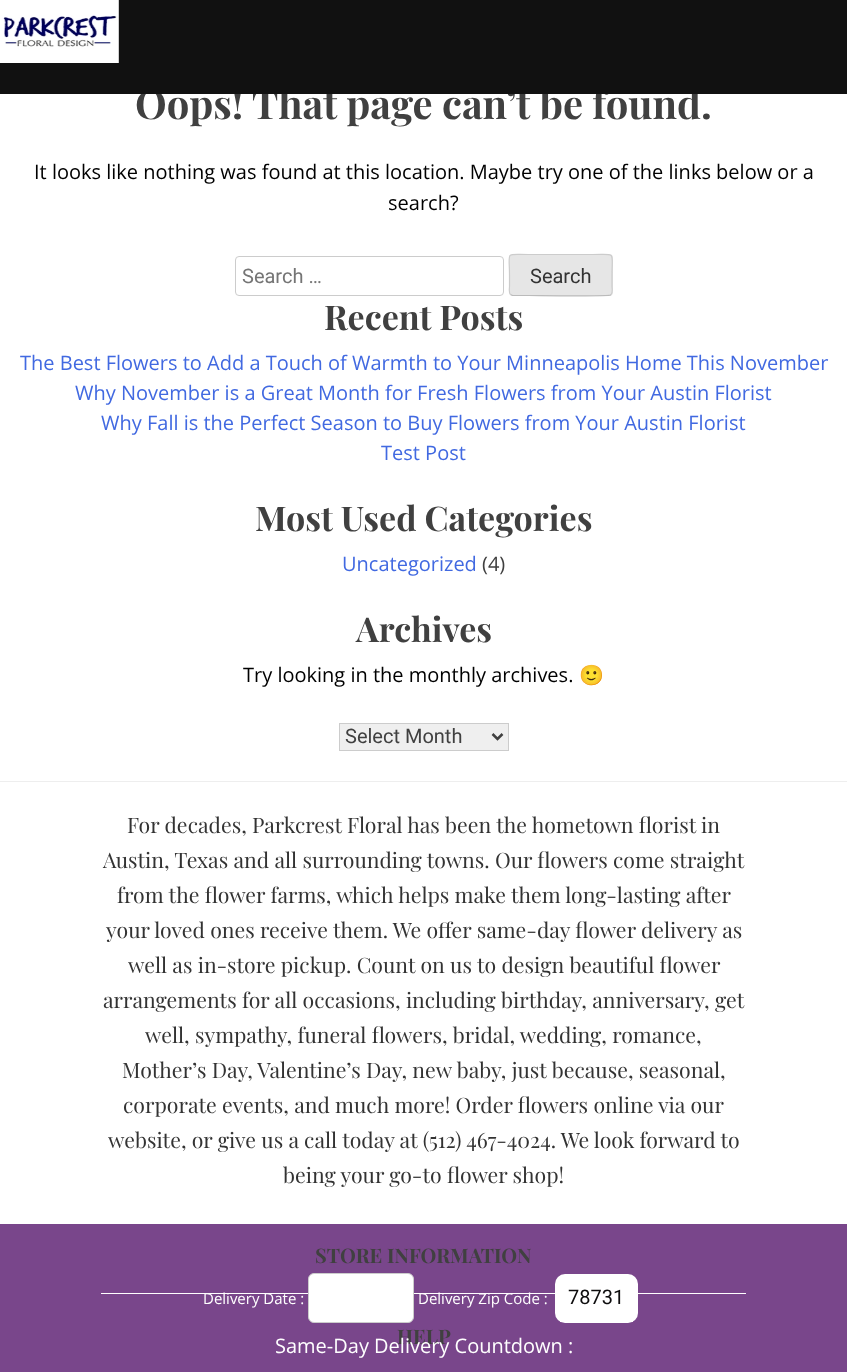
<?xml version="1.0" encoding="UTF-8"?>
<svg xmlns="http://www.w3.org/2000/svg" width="847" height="1372">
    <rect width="100%" height="100%" fill="#FFFFFF"/>
    <text x="135" y="119" font-family="Playfair Display" font-size="40" font-weight="700" fill="#404040">Oops! That page can’t be found.</text>
    <rect x="0" y="0" width="847" height="94" fill="#111111"/>
    <image x="0" y="0" width="119" height="63" href="img_01.png"/>
    <text x="34" y="179" font-family="Open Sans" font-size="20" fill="#000000">It looks like nothing was found at this location. Maybe try one of the links below or a</text>
    <text x="388" y="210" font-family="Open Sans" font-size="20" fill="#000000">search?</text>
    <rect x="235.5" y="256.5" width="268" height="39" rx="3.5" fill="none" stroke="#CCCCCC"/>
    <text x="242" y="283" font-family="Roboto" font-size="20" fill="#757575">Search …</text>
    <rect x="509" y="254" width="104" height="42" rx="4" fill="#E6E6E6"/>
    <path d="M 611 294.5 L 610.5 295 C 608.5 296.5 537.5 295.5 528.5 295.5 H 512.5 L 510.5 294.5" fill="none" stroke="#BBBBBB" stroke-width="1.2"/>
    <path d="M 510.5 294.5 C 508.5 293 509.5 288 509.5 286.5 V 275 C 509.5 250.5 504.5 254.5 528.5 254.5 H 592.5 C 616.5 254.5 612 250.5 612 275 V 286.5 C 612 288 613 293 611 294.5" fill="none" stroke="#CCCCCC" stroke-width="1.2"/>
    <text x="530" y="283" font-family="Roboto" font-size="20" fill="#333333">Search</text>
    <text x="324" y="330" font-family="Playfair Display" font-size="34.1" font-weight="700" fill="#404040">Recent Posts</text>
    <text x="20" y="370" font-family="Open Sans" font-size="20" fill="#4169E1">The Best Flowers to Add a Touch of Warmth to Your Minneapolis Home This November</text>
    <text x="75" y="400" font-family="Open Sans" font-size="20" fill="#4169E1">Why November is a Great Month for Fresh Flowers from Your Austin Florist</text>
    <text x="101" y="430" font-family="Open Sans" font-size="20" fill="#4169E1">Why Fall is the Perfect Season to Buy Flowers from Your Austin Florist</text>
    <text x="381" y="460" font-family="Open Sans" font-size="20" fill="#4169E1">Test Post</text>
    <text x="255" y="531" font-family="Playfair Display" font-size="34.1" font-weight="700" fill="#404040">Most Used Categories</text>
    <text x="342" y="571" font-family="Open Sans" font-size="20" fill="#4169E1">Uncategorized</text>
    <text x="482" y="571" font-family="Open Sans" font-size="20" fill="#404040">(4)</text>
    <text x="356" y="642" font-family="Playfair Display" font-size="34.1" font-weight="700" fill="#404040">Archives</text>
    <text x="243" y="682" font-family="Open Sans" font-size="20" fill="#000000">Try looking in the monthly archives.</text>
    <text x="579" y="682" font-family="Noto Color Emoji" font-size="20" fill="#000000">🙂</text>
    <rect x="339.5" y="723.5" width="169" height="27" fill="#EFEFEF" stroke="#CCCCCC"/>
    <path d="M 492.5 734 L 497.5 739 L 502.5 734" fill="none" stroke="#404040" stroke-width="2.5"/>
    <text x="345" y="743" font-family="Roboto" font-size="20" fill="#404040">Select Month</text>
    <rect x="0" y="781" width="847" height="1" fill="#EEEEEE"/>
    <text x="127" y="833" font-family="Playfair Display" font-size="21.25" fill="#333333">For decades, Parkcrest Floral has been the hometown florist in</text>
    <text x="103" y="868" font-family="Playfair Display" font-size="21.25" fill="#333333">Austin, Texas and all surrounding towns. Our flowers come straight</text>
    <text x="117" y="903" font-family="Playfair Display" font-size="21.25" fill="#333333">from the flower farms, which helps make them long-lasting after</text>
    <text x="106" y="938" font-family="Playfair Display" font-size="21.25" fill="#333333">your loved ones receive them. We offer same-day flower delivery as</text>
    <text x="128" y="973" font-family="Playfair Display" font-size="21.25" fill="#333333">well as in-store pickup. Count on us to design beautiful flower</text>
    <text x="103" y="1008" font-family="Playfair Display" font-size="21.25" fill="#333333">arrangements for all occasions, including birthday, anniversary, get</text>
    <text x="145" y="1043" font-family="Playfair Display" font-size="21.25" fill="#333333">well, sympathy, funeral flowers, bridal, wedding, romance,</text>
    <text x="122" y="1078" font-family="Playfair Display" font-size="21.25" fill="#333333">Mother’s Day, Valentine’s Day, new baby, just because, seasonal,</text>
    <text x="123" y="1113" font-family="Playfair Display" font-size="21.25" fill="#333333">corporate events, and much more! Order flowers online via our</text>
    <text x="108" y="1148" font-family="Playfair Display" font-size="21.25" fill="#333333">website, or give us a call today at (512) 467-4024. We look forward to</text>
    <text x="283" y="1183" font-family="Playfair Display" font-size="21.25" fill="#333333">being your go-to flower shop!</text>
    <rect x="0" y="1224" width="847" height="148" fill="#79468B"/>
    <rect x="101" y="1293" width="645" height="1" fill="#FFFFFF"/>
    <text x="315" y="1263" font-family="Playfair Display" font-size="20" font-weight="700" fill="#404040">STORE INFORMATION</text>
    <text x="397" y="1344" font-family="Playfair Display" font-size="20" font-weight="700" fill="#404040">HELP</text>
    <text x="203" y="1304" font-family="Open Sans" font-size="15" fill="#FFFFFF">Delivery Date :</text>
    <rect x="308.5" y="1273.5" width="105" height="49" rx="5.5" fill="#FFFFFF" stroke="#CCCCCC"/>
    <text x="418" y="1304" font-family="Open Sans" font-size="15" fill="#FFFFFF">Delivery Zip Code :</text>
    <rect x="555" y="1274" width="83" height="49" rx="10" fill="#FFFFFF"/>
    <rect x="560" y="1321" width="73" height="1" fill="#FFFFFF"/>
    <text x="568" y="1304" font-family="Roboto" font-size="20" fill="#0E0D0E">78731</text>
    <text x="275" y="1353" font-family="Open Sans" font-size="20" fill="#FFFFFF">Same-Day Delivery Countdown :</text>
</svg>
